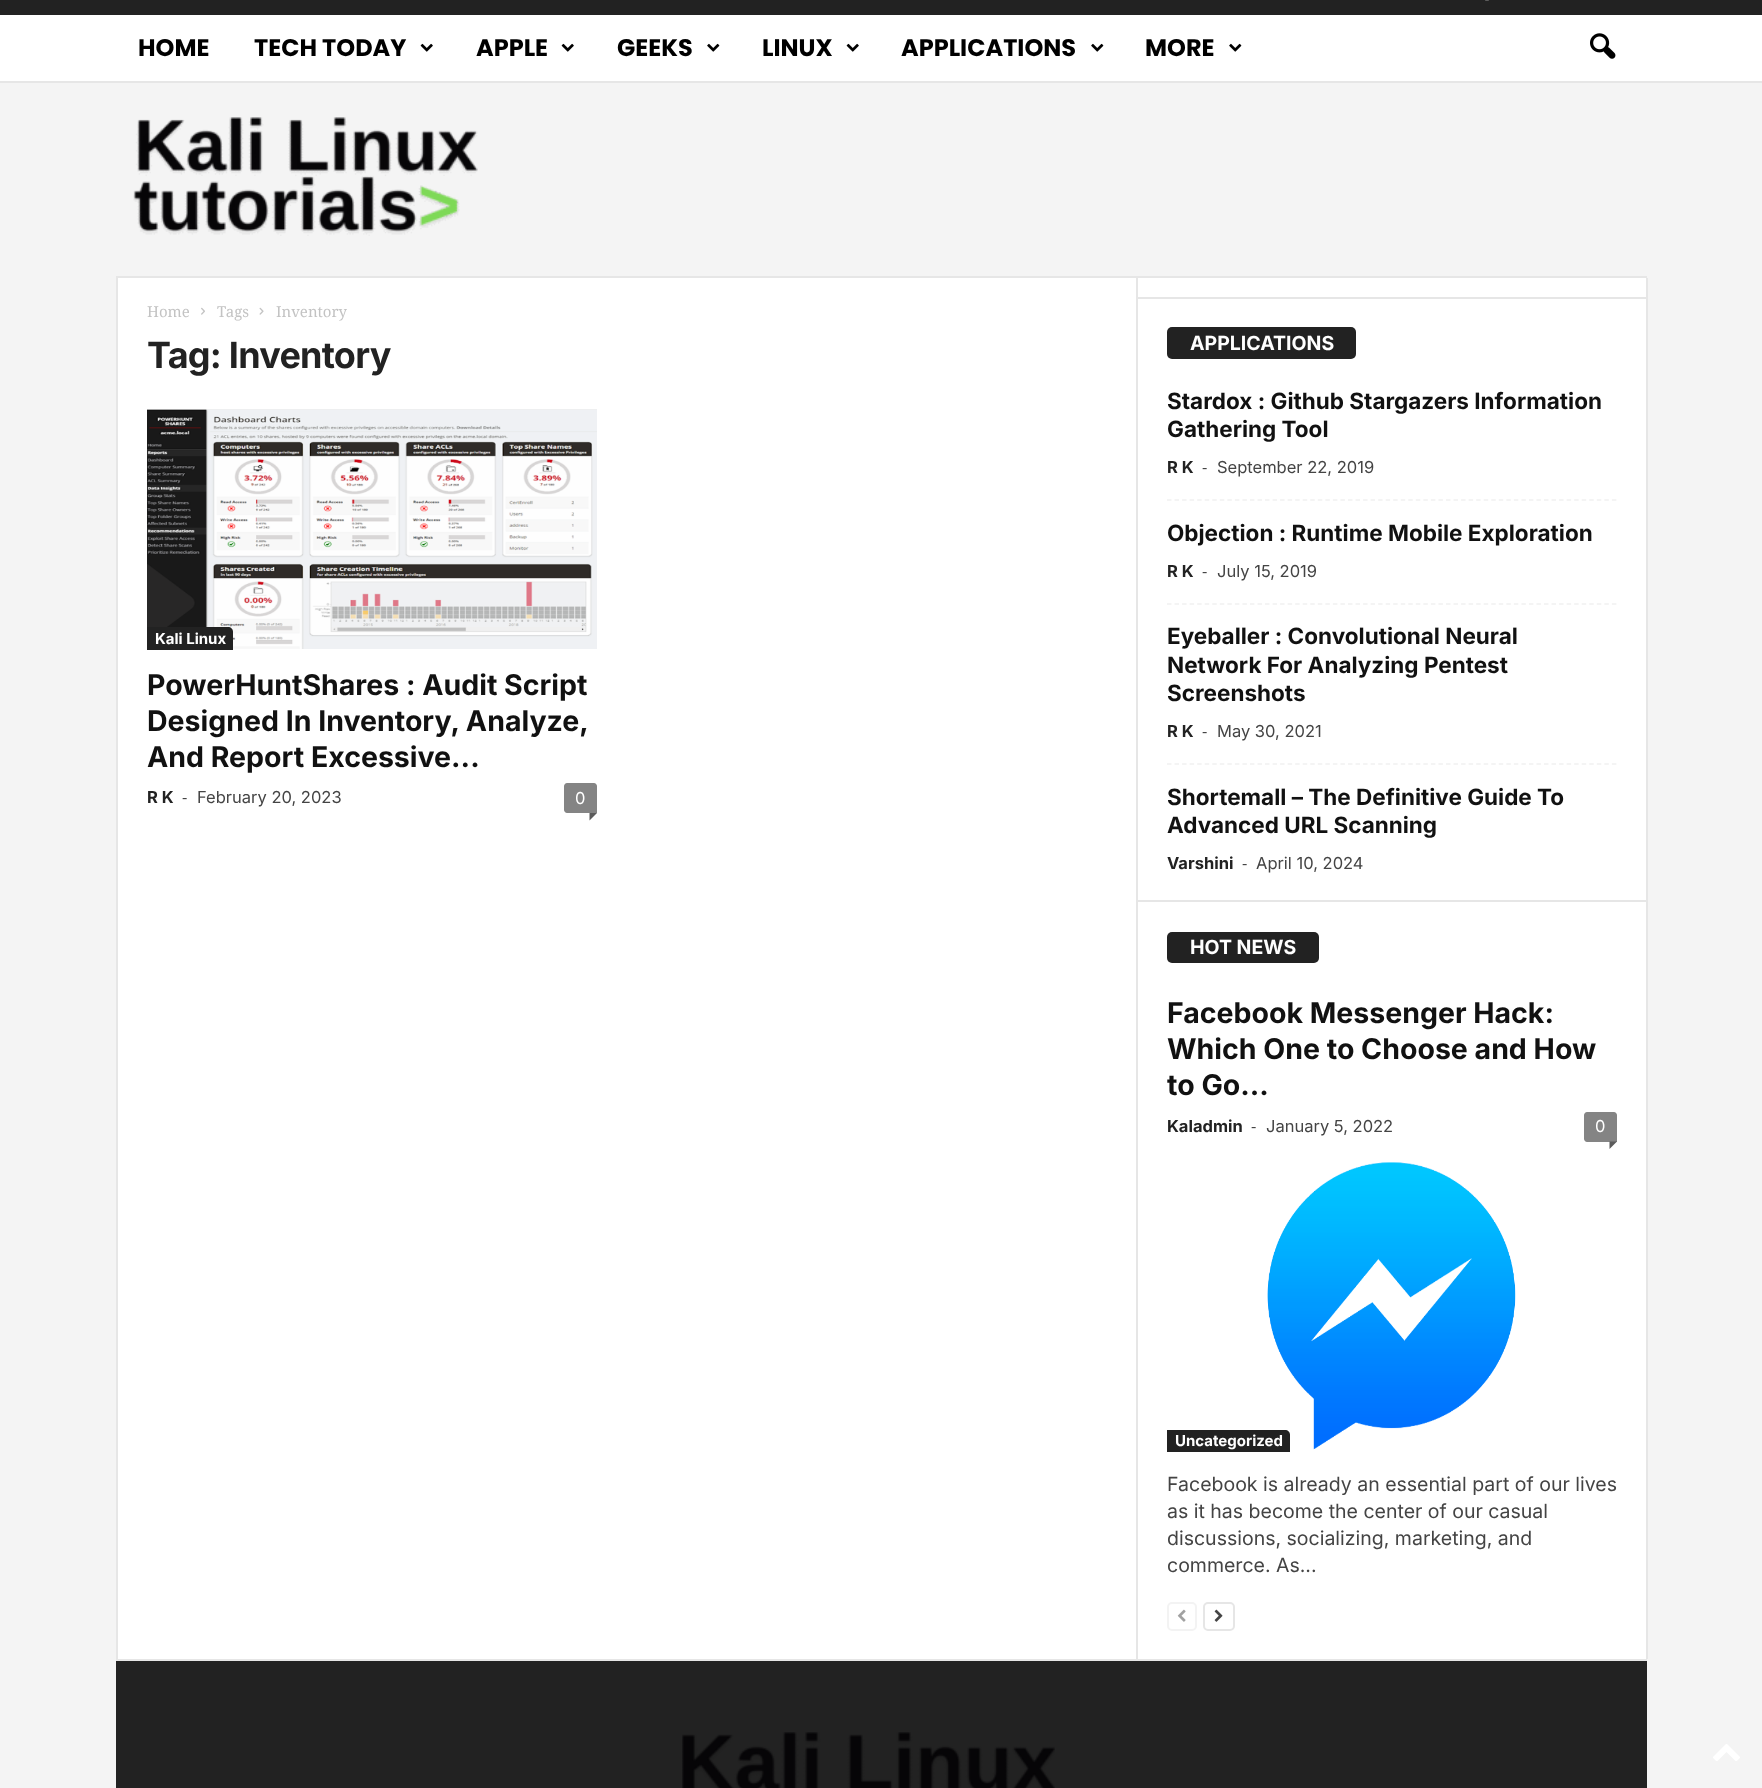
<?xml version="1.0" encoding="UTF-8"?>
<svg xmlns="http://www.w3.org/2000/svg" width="1762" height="1788">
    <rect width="100%" height="100%" fill="#F4F4F4"/>
    <rect x="0" y="0" width="1762" height="15" fill="#222222"/>
    <image x="1485" y="0" width="4" height="1" href="img_01.png"/>
    <rect x="0" y="15" width="1762" height="66" fill="#FFFFFF"/>
    <rect x="0" y="81" width="1762" height="2" fill="#E6E6E6"/>
    <text x="138" y="56" font-family="Poppins" font-size="24" font-weight="700" fill="#000000">HOME</text>
    <text x="254" y="56" font-family="Poppins" font-size="24" font-weight="700" fill="#000000">TECH TODAY</text>
    <image x="420" y="43" width="13" height="9" href="img_02.png"/>
    <text x="476" y="56" font-family="Poppins" font-size="24" font-weight="700" fill="#000000">APPLE</text>
    <image x="561" y="43" width="13" height="9" href="img_02.png"/>
    <text x="617" y="56" font-family="Poppins" font-size="24" font-weight="700" fill="#000000">GEEKS</text>
    <image x="707" y="43" width="13" height="9" href="img_03.png"/>
    <text x="762" y="56" font-family="Poppins" font-size="24" font-weight="700" fill="#000000">LINUX</text>
    <image x="846" y="43" width="13" height="9" href="img_02.png"/>
    <text x="901" y="56" font-family="Poppins" font-size="24" font-weight="700" fill="#000000">APPLICATIONS</text>
    <image x="1091" y="43" width="13" height="9" href="img_03.png"/>
    <text x="1145" y="56" font-family="Poppins" font-size="24" font-weight="700" fill="#000000">MORE</text>
    <image x="1229" y="43" width="13" height="9" href="img_03.png"/>
    <image x="1590" y="33" width="26" height="26" href="img_04.png"/>
    <rect x="116" y="276" width="1531" height="2" fill="#E6E6E6"/>
    <image x="133" y="117" width="345" height="119" href="img_05.png"/>
    <rect x="118" y="278" width="1528" height="1381" fill="#FFFFFF"/>
    <rect x="116" y="1659" width="1531" height="2" fill="#E6E6E6"/>
    <rect x="116" y="278" width="2" height="1381" fill="#E6E6E6"/>
    <text x="147" y="317" font-family="Droid Serif" font-size="15" fill="#C3C3C3">Home</text>
    <image x="201" y="307" width="4" height="8" href="img_06.png"/>
    <text x="217" y="317" font-family="Droid Serif" font-size="15" fill="#C3C3C3">Tags</text>
    <image x="259" y="307" width="5" height="8" href="img_07.png"/>
    <text x="276" y="317" font-family="Droid Serif" font-size="15" fill="#C3C3C3">Inventory</text>
    <text x="147" y="368" font-family="Inter" font-size="36" font-weight="700" letter-spacing="-0.75" fill="#222222">Tag: Inventory</text>
    <image x="147" y="409" width="450" height="240" href="img_08.png"/>
    <path d="M 147 627 H 228 C 231 627 233 629 233 632 V 650 H 147 Z" fill="#222222"/>
    <text x="155" y="644" font-family="Inter" font-size="15" font-weight="700" fill="#FFFFFF">Kali Linux</text>
    <text font-family="Inter" font-size="28.5" font-weight="700" fill="#111111">
        <tspan x="147" y="695">PowerHuntShares : Audit Script</tspan>
        <tspan x="147" y="731">Designed In Inventory, Analyze,</tspan>
        <tspan x="147" y="767">And Report Excessive...</tspan>
    </text>
    <text x="147" y="803" font-family="Inter" font-size="16.5" font-weight="700" fill="#222222">R K</text>
    <text x="182" y="803" font-family="Open Sans" font-size="16.5" fill="#444444">-</text>
    <text x="197" y="803" font-family="Inter" font-size="16.5" fill="#444444">February 20, 2023</text>
    <path d="M 567 783 H 594 C 595.5 783 597 784.5 597 786 V 813 H 567 C 565.5 813 564 811.5 564 810 V 786 C 564 784.5 565.5 783 567 783 Z" fill="#848484"/>
    <text x="575" y="804" font-family="Inter" font-size="16.5" fill="#FFFFFF">0</text>
    <path d="M 589.5 813 H 597 L 589.5 820.5 Z" fill="#5B5B5B"/>
    <rect x="1136" y="278" width="2" height="1381" fill="#E6E6E6"/>
    <rect x="1137" y="297" width="509" height="2" fill="#E6E6E6"/>
    <rect x="1167" y="327" width="189" height="32" rx="5" fill="#222222"/>
    <text x="1190" y="350" font-family="Inter" font-size="19.5" font-weight="700" fill="#FFFFFF">APPLICATIONS</text>
    <path d="M 1167 500 H 1617" fill="none" stroke="#F1F1F1" stroke-width="1.5" stroke-dasharray="4.5 3.04"/>
    <text font-family="Inter" font-size="22.5" font-weight="700" fill="#111111">
        <tspan x="1167" y="409">Stardox : Github Stargazers Information</tspan>
        <tspan x="1167" y="437">Gathering Tool</tspan>
    </text>
    <text x="1167" y="473" font-family="Inter" font-size="16.5" font-weight="700" fill="#222222">R K</text>
    <text x="1202" y="473" font-family="Open Sans" font-size="16.5" fill="#444444">-</text>
    <text x="1217" y="473" font-family="Inter" font-size="16.5" fill="#444444">September 22, 2019</text>
    <path d="M 1167 604 H 1617" fill="none" stroke="#F1F1F1" stroke-width="1.5" stroke-dasharray="4.5 3.04"/>
    <text x="1167" y="541" font-family="Inter" font-size="22.5" font-weight="700" fill="#111111">Objection : Runtime Mobile Exploration</text>
    <text x="1167" y="577" font-family="Inter" font-size="16.5" font-weight="700" fill="#222222">R K</text>
    <text x="1202" y="577" font-family="Open Sans" font-size="16.5" fill="#444444">-</text>
    <text x="1217" y="577" font-family="Inter" font-size="16.5" fill="#444444">July 15, 2019</text>
    <path d="M 1167 764 H 1617" fill="none" stroke="#F1F1F1" stroke-width="1.5" stroke-dasharray="4.5 3.04"/>
    <text font-family="Inter" font-size="22.5" font-weight="700" fill="#111111">
        <tspan x="1167" y="644">Eyeballer : Convolutional Neural</tspan>
        <tspan x="1167" y="673">Network For Analyzing Pentest</tspan>
        <tspan x="1167" y="701">Screenshots</tspan>
    </text>
    <text x="1167" y="737" font-family="Inter" font-size="16.5" font-weight="700" fill="#222222">R K</text>
    <text x="1202" y="737" font-family="Open Sans" font-size="16.5" fill="#444444">-</text>
    <text x="1217" y="737" font-family="Inter" font-size="16.5" fill="#444444">May 30, 2021</text>
    <text font-family="Inter" font-size="22.5" font-weight="700" fill="#111111">
        <tspan x="1167" y="805">Shortemall – The Definitive Guide To</tspan>
        <tspan x="1167" y="833">Advanced URL Scanning</tspan>
    </text>
    <text x="1167" y="869" font-family="Inter" font-size="16.5" font-weight="700" fill="#222222">Varshini</text>
    <text x="1242" y="869" font-family="Open Sans" font-size="16.5" fill="#444444">-</text>
    <text x="1256" y="869" font-family="Inter" font-size="16.5" fill="#444444">April 10, 2024</text>
    <rect x="1137" y="900" width="509" height="2" fill="#E6E6E6"/>
    <rect x="1167" y="932" width="152" height="31" rx="5" fill="#222222"/>
    <text x="1190" y="954" font-family="Inter" font-size="19.5" font-weight="700" fill="#FFFFFF">HOT NEWS</text>
    <text font-family="Inter" font-size="28.5" font-weight="700" fill="#111111">
        <tspan x="1167" y="1023">Facebook Messenger Hack:</tspan>
        <tspan x="1167" y="1059">Which One to Choose and How</tspan>
        <tspan x="1167" y="1095">to Go...</tspan>
    </text>
    <text x="1167" y="1132" font-family="Inter" font-size="16.5" font-weight="700" fill="#222222">Kaladmin</text>
    <text x="1251" y="1132" font-family="Open Sans" font-size="16.5" fill="#444444">-</text>
    <text x="1266" y="1132" font-family="Inter" font-size="16.5" fill="#444444">January 5, 2022</text>
    <path d="M 1587 1112 H 1614 C 1615.5 1112 1617 1113.5 1617 1115 V 1142 H 1587 C 1585.5 1142 1584 1140.5 1584 1139 V 1115 C 1584 1113.5 1585.5 1112 1587 1112 Z" fill="#848484"/>
    <text x="1595" y="1132" font-family="Inter" font-size="16.5" fill="#FFFFFF">0</text>
    <path d="M 1609.5 1141.5 H 1617 L 1609.5 1149 Z" fill="#5B5B5B"/>
    <image x="1267" y="1162" width="249" height="288" href="img_09.png"/>
    <path d="M 1167 1430 H 1285 C 1288 1430 1290 1432 1290 1435 V 1452 H 1167 Z" fill="#222222"/>
    <text x="1175" y="1446" font-family="Inter" font-size="15" font-weight="700" fill="#FFFFFF">Uncategorized</text>
    <text font-family="Inter" font-size="19.5" fill="#444444">
        <tspan x="1167" y="1491">Facebook is already an essential part of our lives</tspan>
        <tspan x="1167" y="1518">as it has become the center of our casual</tspan>
        <tspan x="1167" y="1545">discussions, socializing, marketing, and</tspan>
        <tspan x="1167" y="1572">commerce. As...</tspan>
    </text>
    <rect x="1168" y="1603" width="28" height="27" rx="4" fill="none" stroke="#F3F3F3" stroke-width="2"/>
    <image x="1177" y="1609" width="9" height="13" href="img_10.png"/>
    <rect x="1204" y="1603" width="30" height="27" rx="4" fill="none" stroke="#E6E6E6" stroke-width="2"/>
    <image x="1214" y="1609" width="9" height="13" href="img_11.png"/>
    <rect x="1646" y="278" width="2" height="1381" fill="#E6E6E6"/>
    <rect x="116" y="1661" width="1531" height="127" fill="#222222"/>
    <image x="682" y="1732" width="373" height="56" href="img_12.png"/>
    <image x="1713" y="1744" width="27" height="17" href="img_13.png"/>
</svg>
